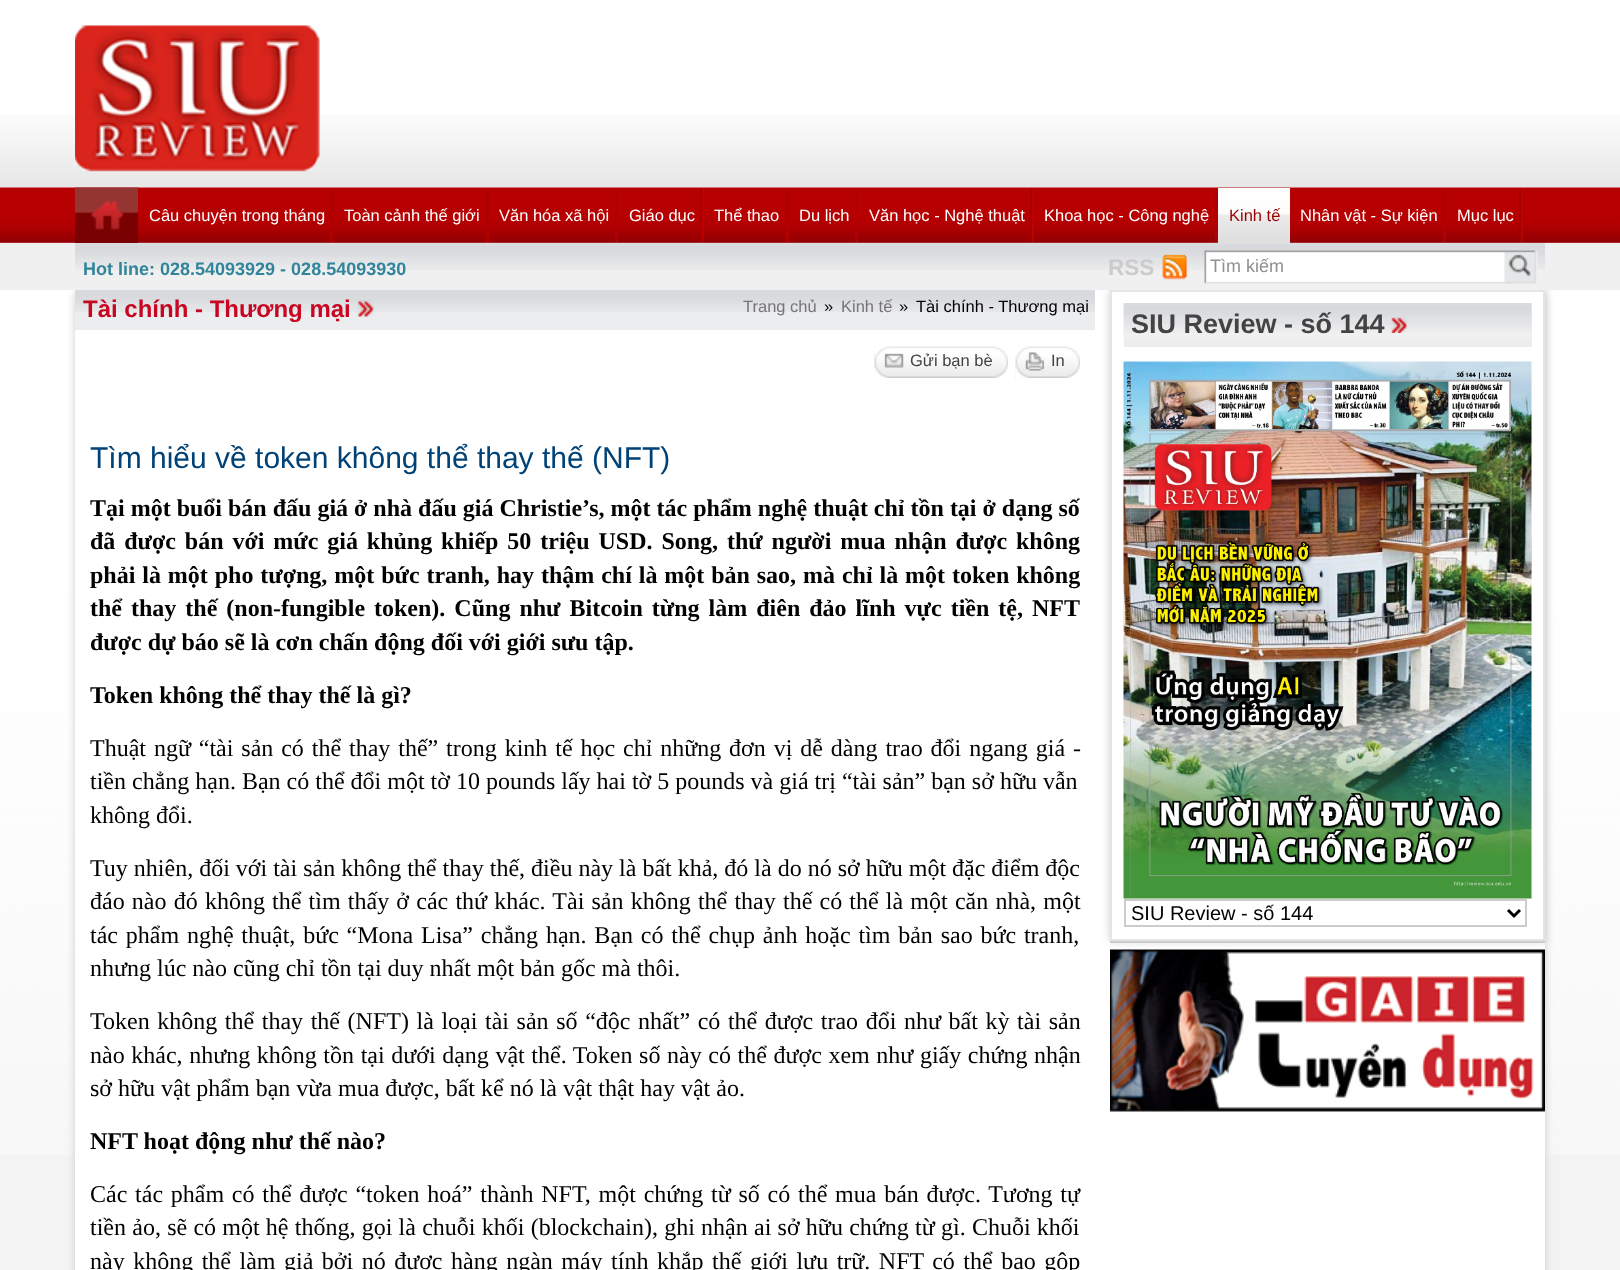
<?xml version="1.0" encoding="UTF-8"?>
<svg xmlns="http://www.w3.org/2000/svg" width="1620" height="1270">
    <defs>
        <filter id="blur1" x="-50%" y="-200%" width="200%" height="500%"><feGaussianBlur stdDeviation="4"/></filter>
    </defs>
    <rect width="100%" height="100%" fill="#F3F3F3"/>
    <image x="0" y="0" width="1620" height="1155" href="img_01.png"/>
    <image x="0" y="114" width="1620" height="74" href="img_02.png"/>
    <image x="75" y="25" width="245" height="147" href="img_03.png"/>
    <image x="0" y="187" width="1620" height="56" href="img_04.png"/>
    <image x="75" y="187" width="63" height="56" href="img_05.png"/>
    <image x="91" y="200" width="33" height="30" href="img_06.png"/>
    <rect x="330" y="189" width="3" height="53" fill="#AE0000"/>
    <text x="149" y="221" font-family="Liberation Sans" font-size="16.5" fill="#FFFFFF">Câu chuyện trong tháng</text>
    <rect x="486" y="189" width="3" height="53" fill="#AE0000"/>
    <text x="344" y="221" font-family="Liberation Sans" font-size="16.5" fill="#FFFFFF">Toàn cảnh thế giới</text>
    <rect x="615" y="189" width="3" height="53" fill="#B10001"/>
    <text x="499" y="221" font-family="Liberation Sans" font-size="16.5" fill="#FFFFFF">Văn hóa xã hội</text>
    <image x="700" y="189" width="4" height="53" href="img_07.png"/>
    <text x="629" y="221" font-family="Liberation Sans" font-size="16.5" fill="#FFFFFF">Giáo dục</text>
    <rect x="786" y="189" width="3" height="53" fill="#B10001"/>
    <text x="714" y="221" font-family="Liberation Sans" font-size="16.5" fill="#FFFFFF">Thể thao</text>
    <rect x="855" y="189" width="3" height="53" fill="#B10001"/>
    <text x="799" y="221" font-family="Liberation Sans" font-size="16.5" fill="#FFFFFF">Du lịch</text>
    <image x="1030" y="189" width="4" height="53" href="img_08.png"/>
    <text x="869" y="221" font-family="Liberation Sans" font-size="16.5" fill="#FFFFFF">Văn học - Nghệ thuật</text>
    <rect x="1215" y="189" width="3" height="53" fill="#AE0000"/>
    <text x="1044" y="221" font-family="Liberation Sans" font-size="16.5" fill="#FFFFFF">Khoa học - Công nghệ</text>
    <image x="1218" y="187" width="72" height="56" href="img_09.png"/>
    <text x="1229" y="221" font-family="Liberation Sans" font-size="16.5" fill="#9A0002">Kinh tế</text>
    <rect x="1443" y="189" width="3" height="53" fill="#B10001"/>
    <text x="1300" y="221" font-family="Liberation Sans" font-size="16.5" fill="#FFFFFF">Nhân vật - Sự kiện</text>
    <image x="1519" y="189" width="4" height="53" href="img_08.png"/>
    <text x="1457" y="221" font-family="Liberation Sans" font-size="16.5" fill="#FFFFFF">Mục lục</text>
    <rect x="75" y="293" width="1470" height="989" fill="#CCCCCC" filter="url(#blur1)"/>
    <rect x="75" y="290" width="1470" height="980" fill="#FFFFFF"/>
    <rect x="1110" y="290" width="435" height="651" fill="#CCCCCC" filter="url(#blur1)"/>
    <rect x="0" y="243" width="1620" height="47" fill="#F0F0F0"/>
    <image x="75" y="243" width="1470" height="27" href="img_10.png"/>
    <text x="83" y="275" font-family="Liberation Sans" font-size="18" font-weight="700" fill="#31859B">Hot line: 028.54093929 - 028.54093930</text>
    <text x="1108" y="275" font-family="Liberation Sans" font-size="22.5" font-weight="700" fill="#CBCBCB">RSS</text>
    <image x="1162" y="254" width="25" height="26" href="img_11.png"/>
    <image x="1204" y="250" width="334" height="34" href="img_12.png"/>
    <text x="1210" y="272" font-family="Liberation Sans" font-size="18" fill="#909090">Tìm kiếm</text>
    <rect x="75" y="312" width="1020" height="18" fill="#ECEDEE"/>
    <image x="75" y="290" width="1020" height="22" href="img_13.png"/>
    <text x="83" y="317" font-family="Liberation Sans" font-size="24" font-weight="700" fill="#C80621">Tài chính - Thương mại</text>
    <image x="357" y="300" width="17" height="17" href="img_14.png"/>
    <text x="743" y="312" font-family="Liberation Sans" font-size="16.5" fill="#757575">Trang chủ</text>
    <text x="824" y="312" font-family="Liberation Sans" font-size="16.5" fill="#000000">»</text>
    <text x="841" y="312" font-family="Liberation Sans" font-size="16.5" fill="#757575">Kinh tế</text>
    <text x="899" y="312" font-family="Liberation Sans" font-size="16.5" fill="#000000">»</text>
    <text x="916" y="312" font-family="Liberation Sans" font-size="16.5" fill="#000000">Tài chính - Thương mại</text>
    <image x="874" y="346" width="134" height="32" href="img_15.png"/>
    <image x="874" y="346" width="30" height="32" href="img_16.png"/>
    <text x="910" y="366" font-family="Liberation Sans" font-size="16.5" fill="#434343">Gửi bạn bè</text>
    <image x="1015" y="346" width="65" height="32" href="img_17.png"/>
    <image x="1015" y="346" width="30" height="32" href="img_18.png"/>
    <text x="1051" y="366" font-family="Liberation Sans" font-size="16.5" fill="#434343">In</text>
    <text x="90" y="468" font-family="Liberation Sans" font-size="30" fill="#004276">Tìm hiểu về token không thể thay thế (NFT)</text>
    <text font-family="Liberation Serif" font-size="24" font-weight="700" fill="#000000">
        <tspan x="90" y="516">Tại một buổi bán đấu giá ở nhà đấu giá Christie’s, một tác phẩm nghệ thuật chỉ tồn tại ở dạng số</tspan>
        <tspan x="90" y="549" word-spacing="2.9">đã được bán với mức giá khủng khiếp 50 triệu USD. Song, thứ người mua nhận được không</tspan>
        <tspan x="90" y="583" word-spacing="0.9">phải là một pho tượng, một bức tranh, hay thậm chí là một bản sao, mà chỉ là một token không</tspan>
        <tspan x="90" y="616" word-spacing="3">thể thay thế (non-fungible token). Cũng như Bitcoin từng làm điên đảo lĩnh vực tiền tệ, NFT</tspan>
        <tspan x="90" y="650">được dự báo sẽ là cơn chấn động đối với giới sưu tập.</tspan>
    </text>
    <text x="90" y="703" font-family="Liberation Serif" font-size="24" font-weight="700" fill="#000000">Token không thể thay thế là gì?</text>
    <text font-family="Liberation Serif" font-size="24" fill="#000000">
        <tspan x="90" y="756" word-spacing="1.9">Thuật ngữ “tài sản có thể thay thế” trong kinh tế học chỉ những đơn vị dễ dàng trao đổi ngang giá -</tspan>
        <tspan x="90" y="789">tiền chẳng hạn. Bạn có thể đổi một tờ 10 pounds lấy hai tờ 5 pounds và giá trị “tài sản” bạn sở hữu vẫn</tspan>
        <tspan x="90" y="823">không đổi.</tspan>
    </text>
    <text font-family="Liberation Serif" font-size="24" fill="#000000">
        <tspan x="90" y="876">Tuy nhiên, đối với tài sản không thể thay thế, điều này là bất khả, đó là do nó sở hữu một đặc điểm độc</tspan>
        <tspan x="90" y="909" word-spacing="1.2">đáo nào đó không thể tìm thấy ở các thứ khác. Tài sản không thể thay thế có thể là một căn nhà, một</tspan>
        <tspan x="90" y="943" word-spacing="1.8">tác phẩm nghệ thuật, bức “Mona Lisa” chẳng hạn. Bạn có thể chụp ảnh hoặc tìm bản sao bức tranh,</tspan>
        <tspan x="90" y="976">nhưng lúc nào cũng chỉ tồn tại duy nhất một bản gốc mà thôi.</tspan>
    </text>
    <text font-family="Liberation Serif" font-size="24" fill="#000000">
        <tspan x="90" y="1029" word-spacing="1.6">Token không thể thay thế (NFT) là loại tài sản số “độc nhất” có thể được trao đổi như bất kỳ tài sản</tspan>
        <tspan x="90" y="1063" word-spacing="0.6">nào khác, nhưng không tồn tại dưới dạng vật thể. Token số này có thể được xem như giấy chứng nhận</tspan>
        <tspan x="90" y="1096">sở hữu vật phẩm bạn vừa mua được, bất kể nó là vật thật hay vật ảo.</tspan>
    </text>
    <text x="90" y="1149" font-family="Liberation Serif" font-size="24" font-weight="700" fill="#000000">NFT hoạt động như thế nào?</text>
    <text font-family="Liberation Serif" font-size="24" fill="#000000">
        <tspan x="90" y="1202" word-spacing="1.75">Các tác phẩm có thể được “token hoá” thành NFT, một chứng từ số có thể mua bán được. Tương tự</tspan>
        <tspan x="90" y="1235" word-spacing="0.25">tiền ảo, sẽ có một hệ thống, gọi là chuỗi khối (blockchain), ghi nhận ai sở hữu chứng từ gì. Chuỗi khối</tspan>
        <tspan x="90" y="1269" word-spacing="2.5">này không thể làm giả bởi nó được hàng ngàn máy tính khắp thế giới lưu trữ. NFT có thể bao gộp</tspan>
    </text>
    <rect x="1111" y="291" width="433" height="649" fill="#FFFFFF" stroke="#E5E5E5" stroke-width="2"/>
    <rect x="1124" y="303" width="408" height="44" fill="#ECEDEE"/>
    <image x="1123" y="303" width="409" height="38" href="img_19.png"/>
    <text x="1131" y="333" font-family="Liberation Sans" font-size="27" font-weight="700" fill="#434343">SIU Review - số 144</text>
    <image x="1391" y="317" width="16" height="16" href="img_20.png"/>
    <image x="1123" y="361" width="409" height="538" href="img_21.png"/>
    <rect x="1125" y="900" width="401" height="26" fill="none" stroke="#CCCCCC" stroke-width="2"/>
    <path d="M 1508 910 L 1514 916 L 1520 910" fill="none" stroke="#000000" stroke-width="3"/>
    <text x="1131" y="920" font-family="Liberation Sans" font-size="20" fill="#000000">SIU Review - số 144</text>
    <rect x="1110" y="941" width="435" height="2" fill="#CCCCCC"/>
    <image x="1110" y="949" width="435" height="163" href="img_22.png"/>
</svg>
